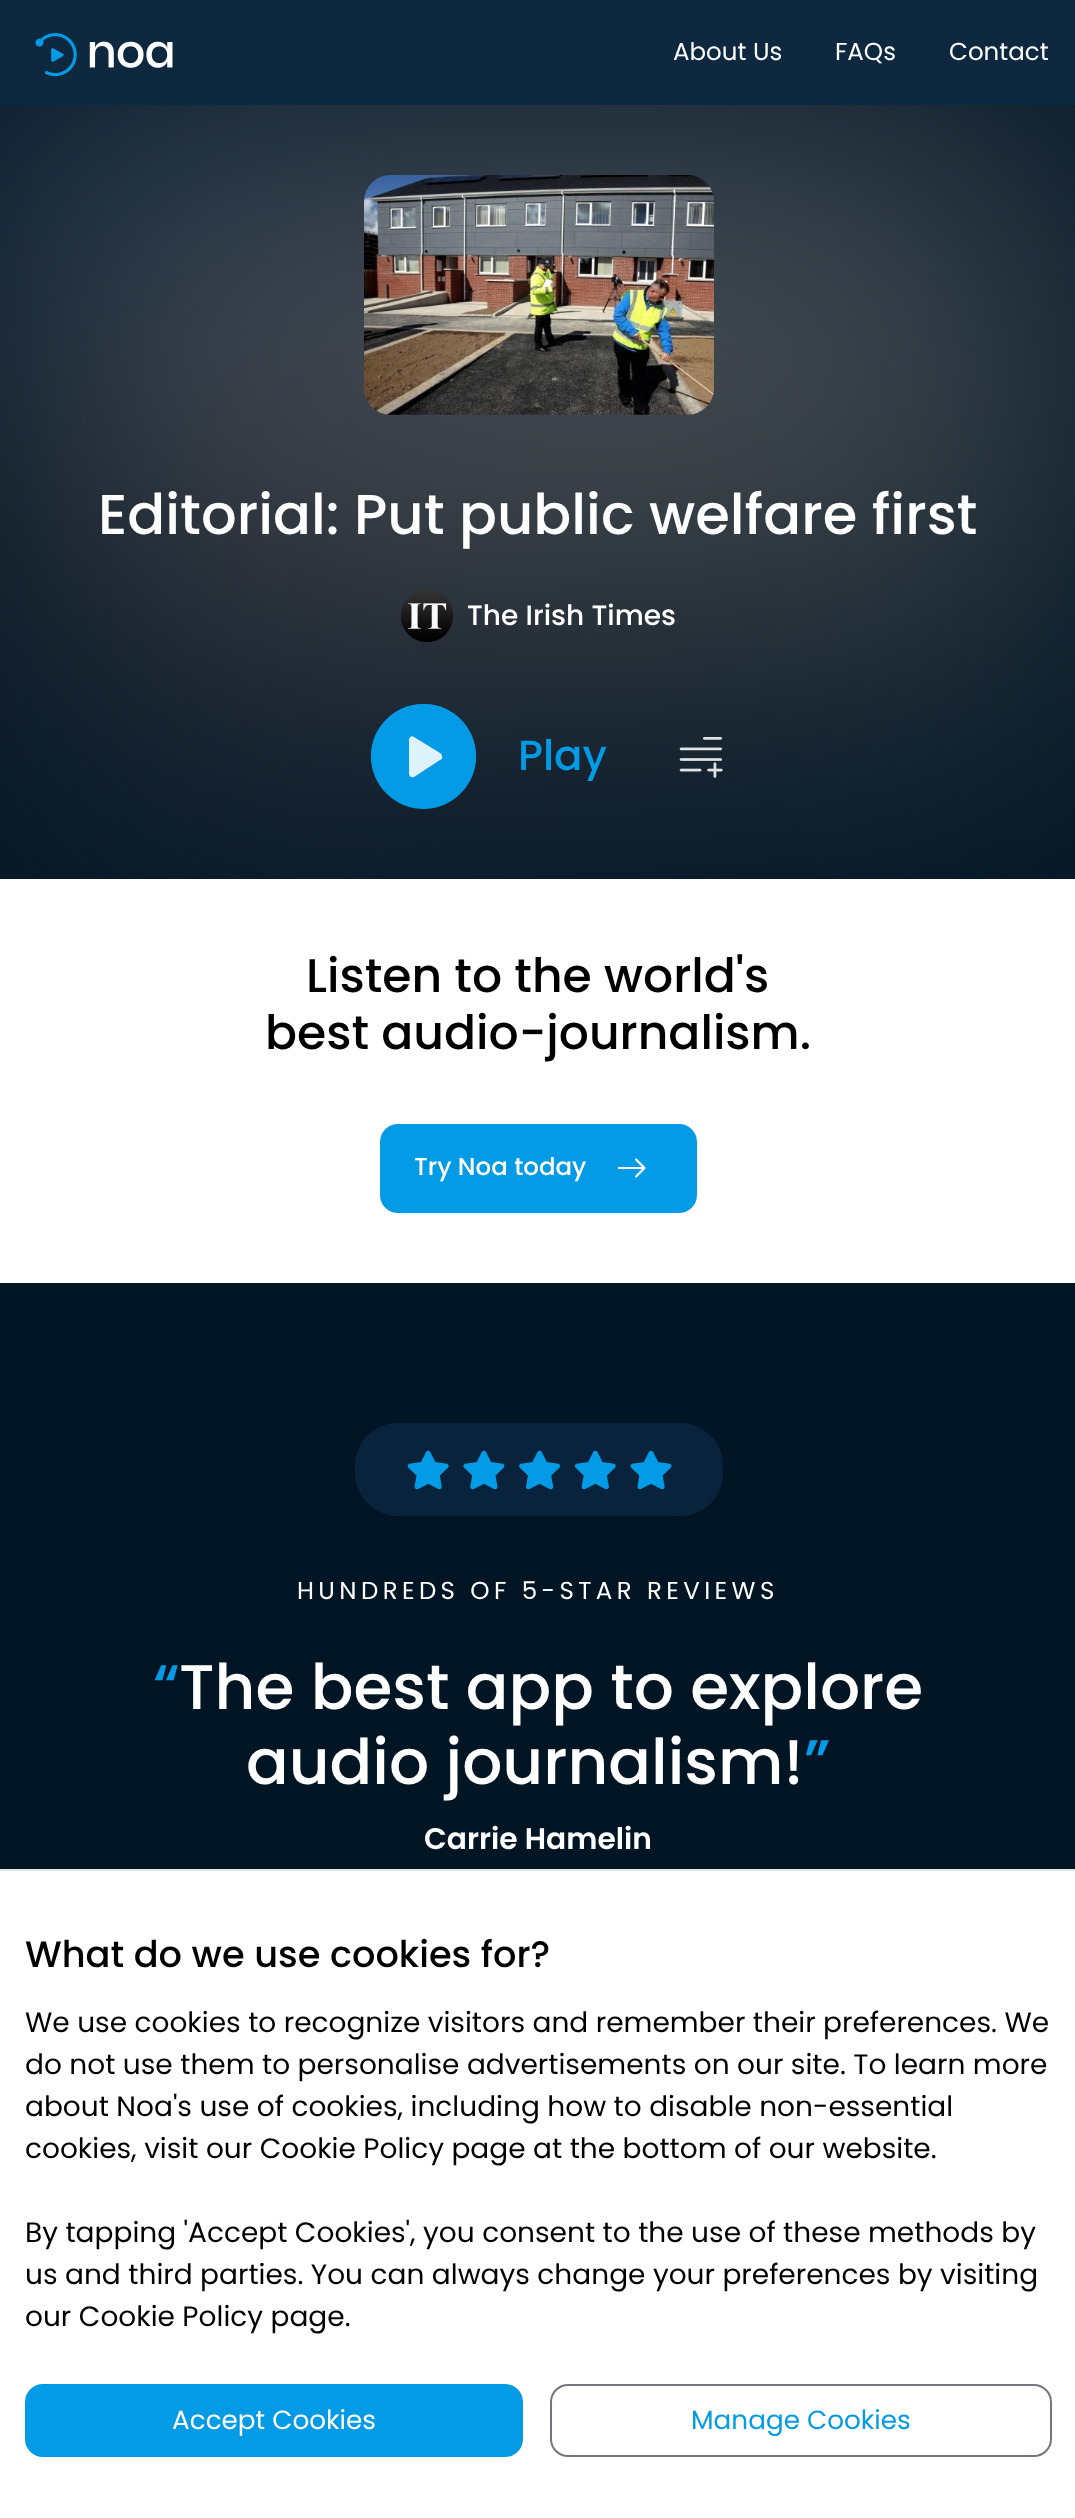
<?xml version="1.0" encoding="UTF-8"?>
<svg xmlns="http://www.w3.org/2000/svg" width="1075" height="2518">
    <rect width="100%" height="100%" fill="#021524"/>
    <rect x="0" y="0" width="1075" height="105" fill="#0D283F"/>
    <image x="35" y="33" width="138" height="44" href="img_01.png"/>
    <text x="673" y="60" font-family="Poppins" font-size="24.5" fill="#FFFFFF">About Us</text>
    <text x="835" y="60" font-family="Poppins" font-size="24.5" fill="#FFFFFF">FAQs</text>
    <text x="949" y="60" font-family="Poppins" font-size="24.5" fill="#FFFFFF">Contact</text>
    <image x="0" y="105" width="1075" height="774" href="img_02.png"/>
    <image x="363" y="175" width="351" height="240" href="img_03.png"/>
    <text x="98" y="534" font-family="Poppins" font-size="56" font-weight="500" fill="#FFFFFF">Editorial: Put public welfare first</text>
    <image x="401" y="590" width="52" height="52" href="img_04.png"/>
    <text x="467" y="625" font-family="Poppins" font-size="28" font-weight="500" fill="#FFFFFF">The Irish Times</text>
    <circle cx="423.5" cy="756.5" r="52.5" fill="#039BE5"/>
    <path d="M 424 704 C 452 704 476 727 476 756 C 476 785 452 808 424 808 C 395 808 371 785 371 756 C 371 727 395 704 424 704 Z" fill="#039BE5"/>
    <path d="M 440 753 L 414 737 C 412 735 409 737 409 740 V 773 C 409 777 412 778 414 777 L 440 760 C 443 759 443 755 440 753 Z" fill="#DEF2FC"/>
    <text x="518" y="770" font-family="Poppins" font-size="42" font-weight="500" fill="#039BE5">Play</text>
    <image x="679" y="737" width="44" height="41" href="img_05.png"/>
    <rect x="0" y="879" width="1075" height="404" fill="#FFFFFF"/>
    <text x="306" y="992" font-family="Poppins" font-size="47.25" font-weight="500" fill="#000000">Listen to the world's</text>
    <text x="265" y="1049" font-family="Poppins" font-size="47.25" font-weight="500" fill="#000000">best audio-journalism.</text>
    <rect x="380" y="1124" width="317" height="89" rx="18" fill="#039BE5"/>
    <text x="414" y="1175" font-family="Poppins" font-size="24.5" font-weight="500" fill="#FFFFFF">Try Noa today</text>
    <path d="M 636 1159.5 L 644.5 1168 L 636 1176.5 M 619 1168 H 644.5" fill="none" stroke="#FFFFFF" stroke-width="2.2" stroke-linecap="round" stroke-linejoin="round"/>
    <image x="355" y="1423" width="368" height="93" href="img_06.png"/>
    <text x="297" y="1599" font-family="Poppins" font-size="24.5" letter-spacing="4.4" fill="#FFFFFF">HUNDREDS OF 5-STAR REVIEWS</text>
    <text x="153" y="1709" font-family="Poppins" font-size="63" font-weight="500" fill="#039BE5">“</text>
    <text x="179" y="1709" font-family="Poppins" font-size="63" font-weight="500" fill="#FFFFFF">The best app to explore</text>
    <text x="246" y="1784" font-family="Poppins" font-size="63" font-weight="500" fill="#FFFFFF">audio journalism!</text>
    <text x="804" y="1784" font-family="Poppins" font-size="63" font-weight="500" fill="#039BE5">”</text>
    <text x="424" y="1849" font-family="Poppins" font-size="29.75" font-weight="600" fill="#FFFFFF">Carrie Hamelin</text>
    <rect x="0" y="1871" width="1075" height="647" fill="#FFFFFF"/>
    <rect x="0" y="1869" width="1075" height="2" fill="#E6E6E6"/>
    <text x="25" y="1967" font-family="Poppins" font-size="36.75" font-weight="500" fill="#000000">What do we use cookies for?</text>
    <text font-family="Poppins" font-size="28" fill="#000000">
        <tspan x="25" y="2032">We use cookies to recognize visitors and remember their preferences. We</tspan>
        <tspan x="25" y="2074">do not use them to personalise advertisements on our site. To learn more</tspan>
        <tspan x="25" y="2116">about Noa's use of cookies, including how to disable non-essential</tspan>
        <tspan x="25" y="2158">cookies, visit our Cookie Policy page at the bottom of our website.</tspan>
    </text>
    <text font-family="Poppins" font-size="28" fill="#000000">
        <tspan x="25" y="2242">By tapping 'Accept Cookies', you consent to the use of these methods by</tspan>
        <tspan x="25" y="2284">us and third parties. You can always change your preferences by visiting</tspan>
        <tspan x="25" y="2326">our Cookie Policy page.</tspan>
    </text>
    <rect x="25" y="2384" width="498" height="73" rx="18" fill="#039BE5"/>
    <text x="172" y="2429" font-family="Poppins" font-size="26.25" fill="#FFFFFF">Accept Cookies</text>
    <rect x="551" y="2385" width="500" height="71" rx="17" fill="none" stroke="#79747E" stroke-width="2"/>
    <text x="691" y="2429" font-family="Poppins" font-size="26.25" fill="#039BE5">Manage Cookies</text>
</svg>
